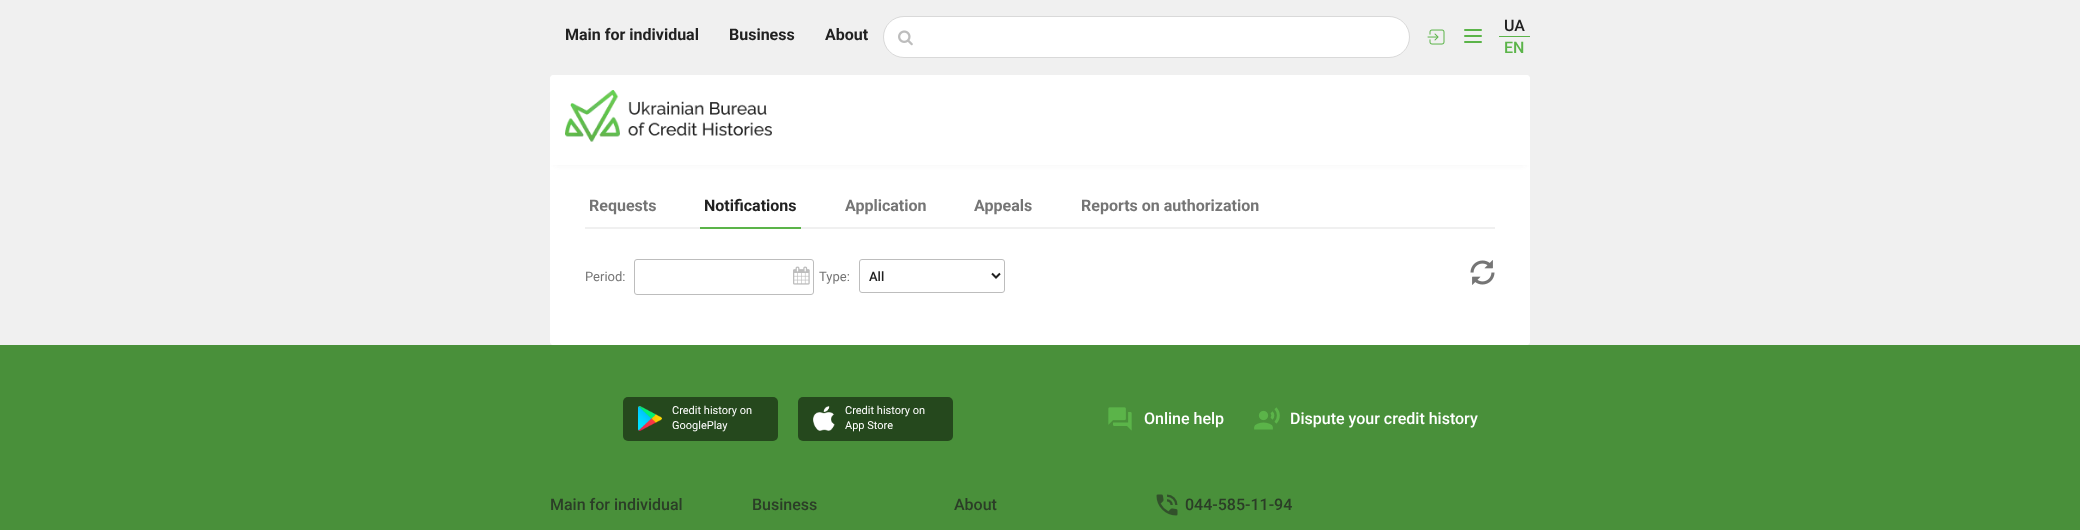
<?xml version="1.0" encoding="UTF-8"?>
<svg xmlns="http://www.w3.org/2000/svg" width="2080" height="530">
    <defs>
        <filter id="blur1" x="-50%" y="-200%" width="200%" height="500%"><feGaussianBlur stdDeviation="2.5"/></filter>
    </defs>
    <rect width="100%" height="100%" fill="#F0F0F0"/>
    <text x="565" y="40" font-family="Roboto" font-size="16" font-weight="700" fill="#212121">Main for individual</text>
    <text x="729" y="40" font-family="Roboto" font-size="16" font-weight="700" fill="#212121">Business</text>
    <text x="825" y="40" font-family="Roboto" font-size="16" font-weight="700" fill="#212121">About</text>
    <rect x="883.5" y="16.5" width="526" height="41" rx="20.5" fill="#FFFFFF" stroke="#D9D9D9"/>
    <image x="898" y="30" width="15" height="16" href="img_01.png"/>
    <image x="1427" y="29" width="18" height="16" href="img_02.png"/>
    <image x="1464" y="29" width="18" height="14" href="img_03.png"/>
    <text x="1504" y="31" font-family="Roboto" font-size="16" font-weight="500" fill="#212121">UA</text>
    <rect x="1499" y="36" width="31" height="1" fill="#5BB449"/>
    <text x="1504" y="53" font-family="Roboto" font-size="16" font-weight="500" fill="#5BB449">EN</text>
    <path d="M 550 165 H 1530 V 342 C 1530 343.5 1528.5 345 1527 345 H 553 C 551.5 345 550 343.5 550 342 Z" fill="#FFFFFF"/>
    <rect x="555" y="85" width="970" height="80" fill="#69696D" fill-opacity="0.08" filter="url(#blur1)"/>
    <path d="M 553 75 H 1527 C 1528.5 75 1530 76.5 1530 78 V 165 H 550 V 78 C 550 76.5 551.5 75 553 75 Z" fill="#FFFFFF"/>
    <image x="565" y="90" width="207" height="52" href="img_04.png"/>
    <rect x="585" y="227" width="910" height="2" fill="#F0F0F0"/>
    <text x="589" y="211" font-family="Roboto" font-size="16" font-weight="700" fill="#757575">Requests</text>
    <rect x="700" y="227" width="101" height="2" fill="#5BB449"/>
    <text x="704" y="211" font-family="Roboto" font-size="16" font-weight="700" fill="#212121">Notifications</text>
    <text x="845" y="211" font-family="Roboto" font-size="16" font-weight="700" fill="#757575">Application</text>
    <text x="974" y="211" font-family="Roboto" font-size="16" font-weight="700" fill="#757575">Appeals</text>
    <text x="1081" y="211" font-family="Roboto" font-size="16" font-weight="700" fill="#757575">Reports on authorization</text>
    <text x="585" y="281" font-family="Roboto" font-size="13" fill="#757575">Period:</text>
    <rect x="634.5" y="259.5" width="179" height="35" rx="2.5" fill="none" stroke="#BDBDBD"/>
    <image x="793" y="266" width="17" height="19" href="img_05.png"/>
    <text x="819" y="281" font-family="Roboto" font-size="13" fill="#757575">Type:</text>
    <rect x="859.5" y="259.5" width="145" height="33" rx="2.5" fill="none" stroke="#BDBDBD"/>
    <path d="M 992 273.5 L 996 277.5 L 1000 273.5" fill="none" stroke="#212121" stroke-width="2"/>
    <text x="869" y="281" font-family="Roboto" font-size="13" font-weight="500" fill="#212121">All</text>
    <image x="1470" y="260" width="25" height="25" href="img_06.png"/>
    <rect x="0" y="345" width="2080" height="185" fill="#49903A"/>
    <rect x="623" y="397" width="155" height="44" rx="5" fill="#25481D"/>
    <image x="638" y="406" width="24" height="25" href="img_07.png"/>
    <text font-family="Roboto" font-size="11" fill="#FFFFFF">
        <tspan x="672" y="414">Credit history on</tspan>
        <tspan x="672" y="429">GooglePlay</tspan>
    </text>
    <rect x="798" y="397" width="155" height="44" rx="5" fill="#25481D"/>
    <image x="813" y="406" width="22" height="25" href="img_08.png"/>
    <text font-family="Roboto" font-size="11" fill="#FFFFFF">
        <tspan x="845" y="414">Credit history on</tspan>
        <tspan x="845" y="429">App Store</tspan>
    </text>
    <image x="1108" y="407" width="24" height="24" href="img_09.png"/>
    <text x="1144" y="424" font-family="Roboto" font-size="16" font-weight="500" fill="#FFFFFF">Online help</text>
    <image x="1254" y="407" width="26" height="23" href="img_10.png"/>
    <text x="1290" y="424" font-family="Roboto" font-size="16" font-weight="500" fill="#FFFFFF">Dispute your credit history</text>
    <text x="550" y="510" font-family="Roboto" font-size="16" font-weight="500" fill="#2B3D27">Main for individual</text>
    <text x="752" y="510" font-family="Roboto" font-size="16" font-weight="500" fill="#2B3D27">Business</text>
    <text x="954" y="510" font-family="Roboto" font-size="16" font-weight="500" fill="#2B3D27">About</text>
    <image x="1156" y="494" width="22" height="22" href="img_11.png"/>
    <text x="1185" y="510" font-family="Roboto" font-size="16" font-weight="500" fill="#2B3D27">044-585-11-94</text>
</svg>
